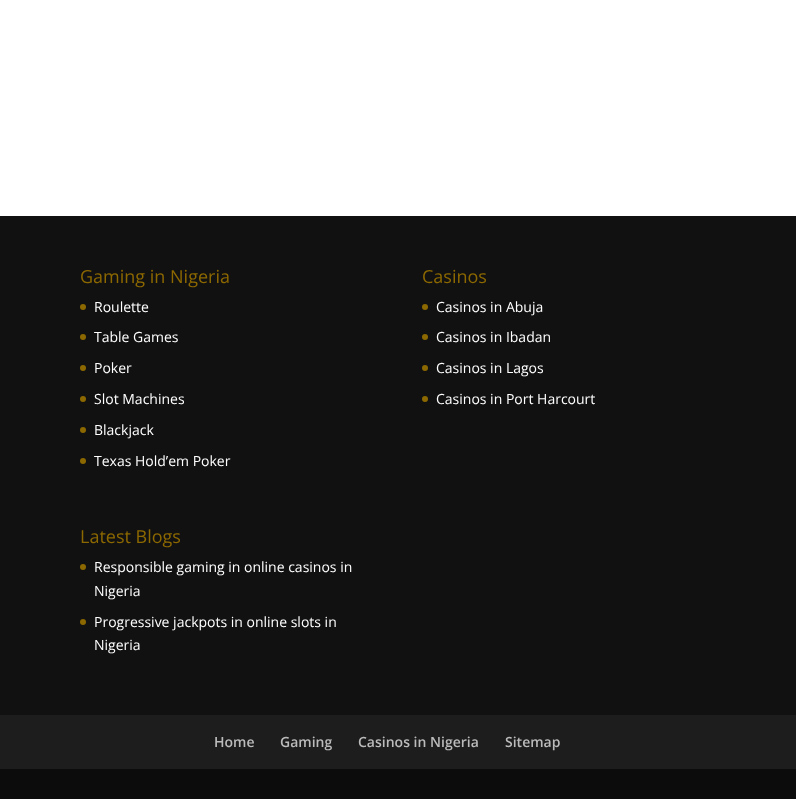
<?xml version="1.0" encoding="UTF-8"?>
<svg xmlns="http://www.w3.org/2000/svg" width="796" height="799">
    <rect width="100%" height="100%" fill="#FFFFFF"/>
    <rect x="0" y="216" width="796" height="499" fill="#111111"/>
    <text x="80" y="283" font-family="Open Sans" font-size="18" fill="#8C6800">Gaming in Nigeria</text>
    <circle cx="83" cy="307" r="3" fill="#8C6800"/>
    <text x="94" y="312" font-family="Open Sans" font-size="14" fill="#FFFFFF">Roulette</text>
    <circle cx="83" cy="337" r="3" fill="#8C6800"/>
    <text x="94" y="342" font-family="Open Sans" font-size="14" fill="#FFFFFF">Table Games</text>
    <circle cx="83" cy="368" r="3" fill="#8C6800"/>
    <text x="94" y="373" font-family="Open Sans" font-size="14" fill="#FFFFFF">Poker</text>
    <circle cx="83" cy="399" r="3" fill="#8C6800"/>
    <text x="94" y="404" font-family="Open Sans" font-size="14" fill="#FFFFFF">Slot Machines</text>
    <circle cx="83" cy="430" r="3" fill="#8C6800"/>
    <text x="94" y="435" font-family="Open Sans" font-size="14" fill="#FFFFFF">Blackjack</text>
    <circle cx="83" cy="461" r="3" fill="#8C6800"/>
    <text x="94" y="466" font-family="Open Sans" font-size="14" fill="#FFFFFF">Texas Hold’em Poker</text>
    <text x="422" y="283" font-family="Open Sans" font-size="18" fill="#8C6800">Casinos</text>
    <circle cx="425" cy="307" r="3" fill="#8C6800"/>
    <text x="436" y="312" font-family="Open Sans" font-size="14" fill="#FFFFFF">Casinos in Abuja</text>
    <circle cx="425" cy="337" r="3" fill="#8C6800"/>
    <text x="436" y="342" font-family="Open Sans" font-size="14" fill="#FFFFFF">Casinos in Ibadan</text>
    <circle cx="425" cy="368" r="3" fill="#8C6800"/>
    <text x="436" y="373" font-family="Open Sans" font-size="14" fill="#FFFFFF">Casinos in Lagos</text>
    <circle cx="425" cy="399" r="3" fill="#8C6800"/>
    <text x="436" y="404" font-family="Open Sans" font-size="14" fill="#FFFFFF">Casinos in Port Harcourt</text>
    <text x="80" y="543" font-family="Open Sans" font-size="18" fill="#8C6800">Latest Blogs</text>
    <circle cx="83" cy="567" r="3" fill="#8C6800"/>
    <text font-family="Open Sans" font-size="14" fill="#FFFFFF">
        <tspan x="94" y="572">Responsible gaming in online casinos in</tspan>
        <tspan x="94" y="596">Nigeria</tspan>
    </text>
    <circle cx="83" cy="622" r="3" fill="#8C6800"/>
    <text font-family="Open Sans" font-size="14" fill="#FFFFFF">
        <tspan x="94" y="627">Progressive jackpots in online slots in</tspan>
        <tspan x="94" y="650">Nigeria</tspan>
    </text>
    <rect x="0" y="715" width="796" height="54" fill="#1D1D1D"/>
    <text x="214" y="747" font-family="Open Sans" font-size="14" font-weight="600" fill="#BBBBBB">Home</text>
    <text x="280" y="747" font-family="Open Sans" font-size="14" font-weight="600" fill="#BBBBBB">Gaming</text>
    <text x="358" y="747" font-family="Open Sans" font-size="14" font-weight="600" fill="#BBBBBB">Casinos in Nigeria</text>
    <text x="505" y="747" font-family="Open Sans" font-size="14" font-weight="600" fill="#BBBBBB">Sitemap</text>
    <rect x="0" y="769" width="796" height="30" fill="#0C0C0C"/>
</svg>
